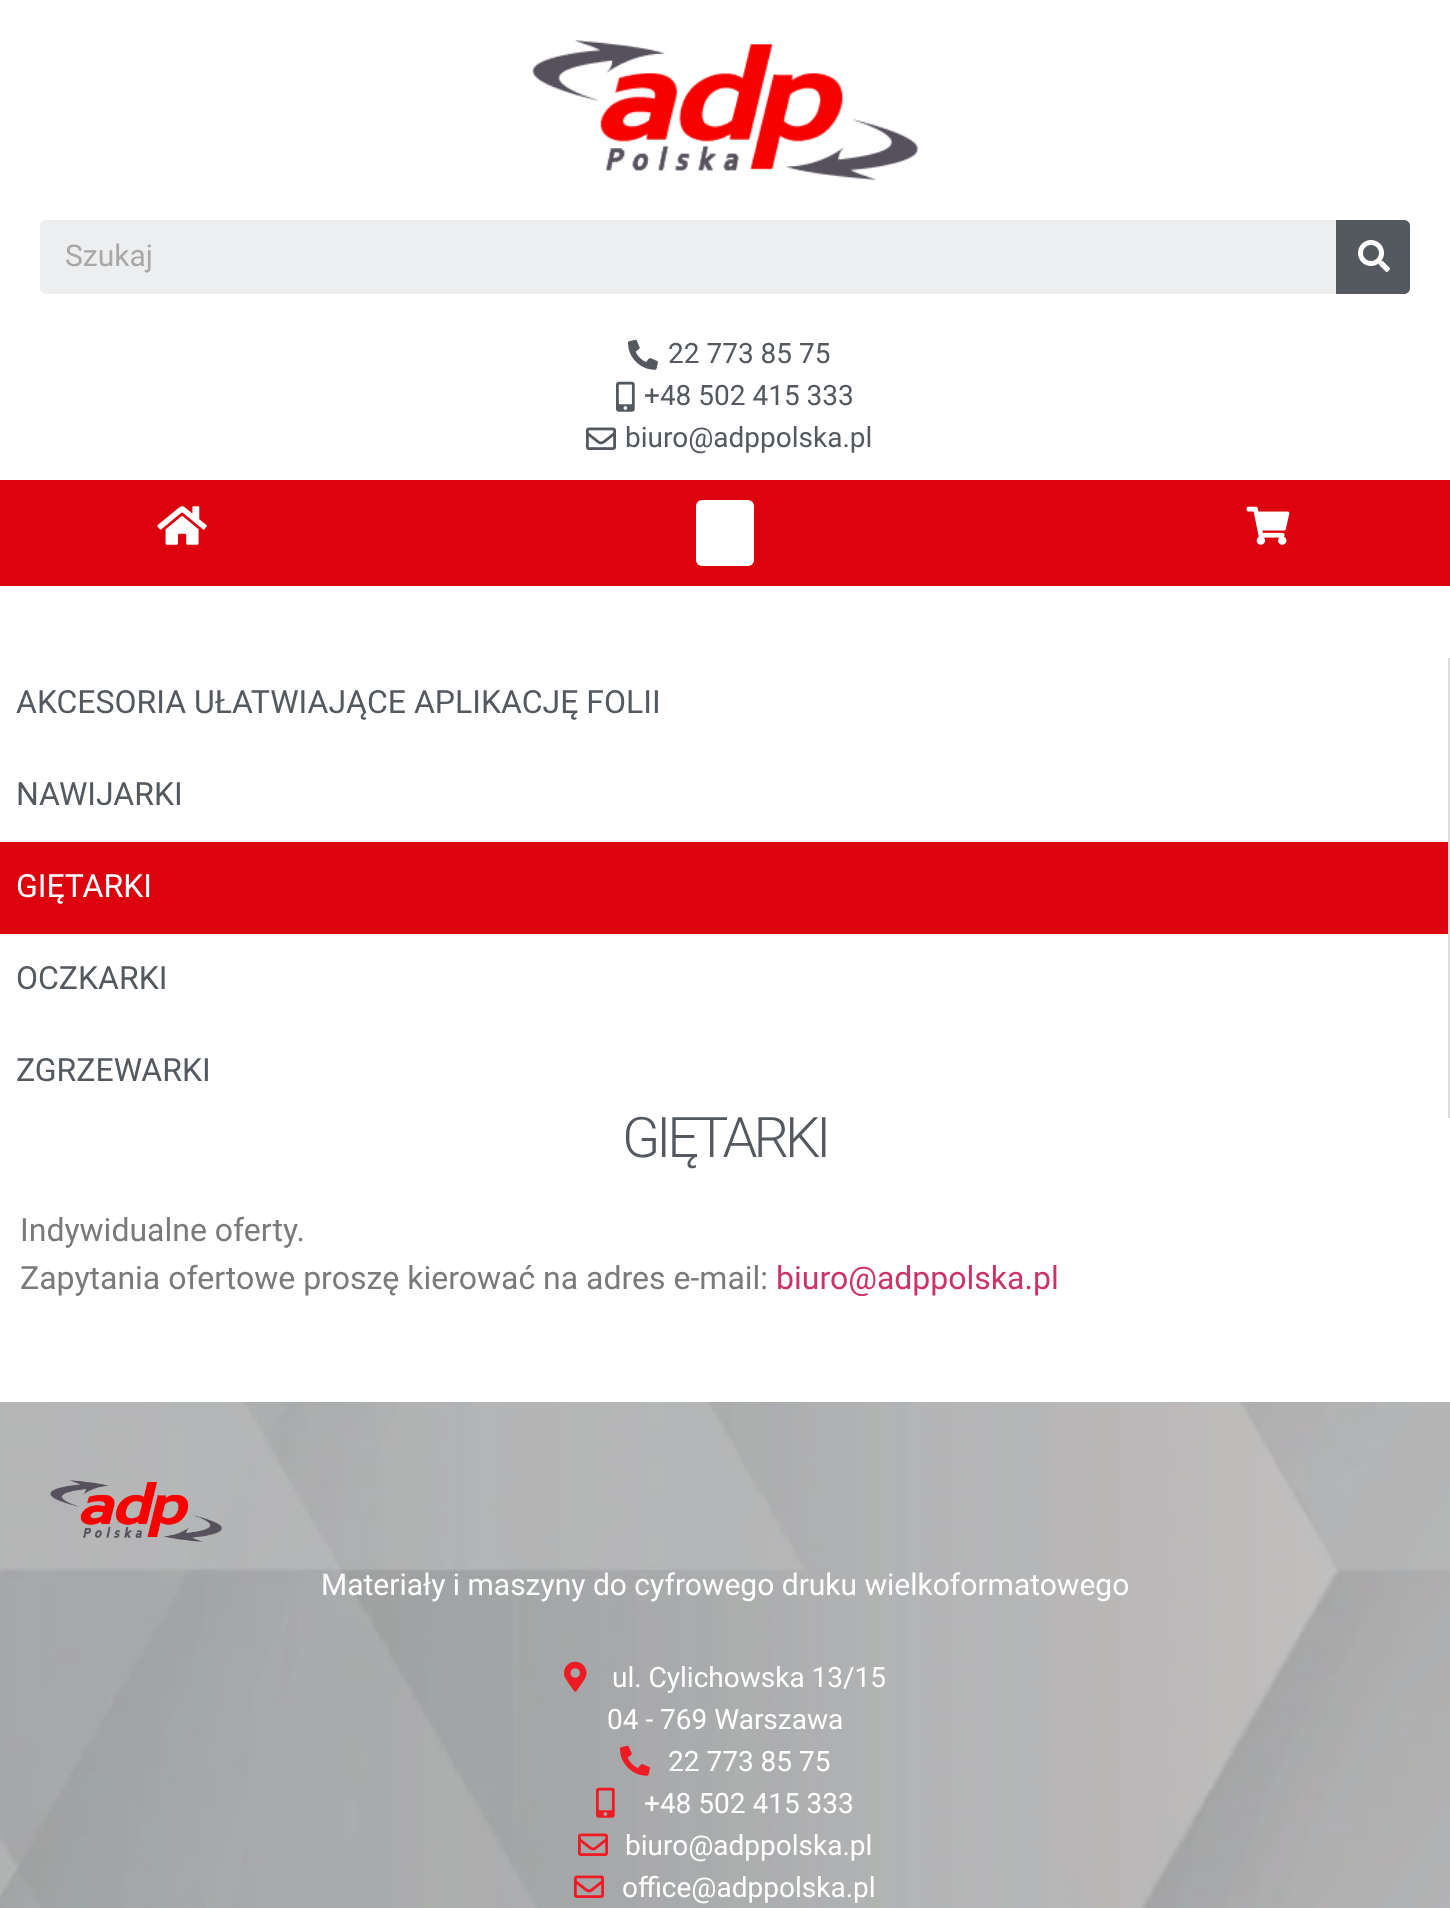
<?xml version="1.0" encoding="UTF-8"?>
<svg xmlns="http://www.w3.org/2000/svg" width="1450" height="1908">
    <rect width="100%" height="100%" fill="#FFFFFF"/>
    <image x="532" y="40" width="386" height="140" href="img_01.png"/>
    <rect x="40" y="220" width="1370" height="74" rx="6" fill="#ECEEEF"/>
    <text x="65" y="266" font-family="Roboto" font-size="30" fill="#A8A8A9">Szukaj</text>
    <path d="M 1336 220 H 1404 C 1407.5 220 1410 222.5 1410 226 V 288 C 1410 291.5 1407.5 294 1404 294 H 1336 Z" fill="#54595F"/>
    <image x="1358" y="240" width="32" height="32" href="img_02.png"/>
    <image x="628" y="339" width="30" height="31" href="img_03.png"/>
    <text x="668" y="363" font-family="Roboto" font-size="28" fill="#54595F">22 773 85 75</text>
    <image x="616" y="381" width="19" height="31" href="img_04.png"/>
    <text x="644" y="405" font-family="Roboto" font-size="28" fill="#54595F">+48 502 415 333</text>
    <image x="586" y="427" width="30" height="23" href="img_05.png"/>
    <text x="625" y="447" font-family="Roboto" font-size="28" fill="#54595F">biuro@adppolska.pl</text>
    <rect x="0" y="480" width="1450" height="106" fill="#DC030E"/>
    <image x="157" y="506" width="50" height="39" href="img_06.png"/>
    <rect x="696" y="500" width="58" height="66" rx="6" fill="#FFFFFF"/>
    <image x="1246" y="506" width="44" height="39" href="img_07.png"/>
    <rect x="1448" y="658" width="2" height="460" fill="#DDDDDD"/>
    <text x="16" y="713" font-family="Roboto" font-size="32" fill="#54595F">AKCESORIA UŁATWIAJĄCE APLIKACJĘ FOLII</text>
    <text x="16" y="805" font-family="Roboto" font-size="32" fill="#54595F">NAWIJARKI</text>
    <rect x="0" y="842" width="1448" height="92" fill="#DC030E"/>
    <text x="16" y="897" font-family="Roboto" font-size="32" fill="#FFFFFF">GIĘTARKI</text>
    <text x="16" y="989" font-family="Roboto" font-size="32" fill="#54595F">OCZKARKI</text>
    <text x="16" y="1081" font-family="Roboto" font-size="32" fill="#54595F">ZGRZEWARKI</text>
    <text x="622" y="1157" font-family="Roboto" font-size="56" font-weight="300" letter-spacing="-4" fill="#54595F">GIĘTARKI</text>
    <text font-family="Roboto" font-size="32" fill="#7A7A7A">
        <tspan x="20" y="1241">Indywidualne oferty.</tspan>
        <tspan x="20" y="1289">Zapytania ofertowe proszę kierować na adres e-mail:</tspan>
    </text>
    <text x="776" y="1289" font-family="Roboto" font-size="32" fill="#CC3366">biuro@adppolska.pl</text>
    <image x="0" y="1402" width="1450" height="506" href="img_08.png"/>
    <image x="50" y="1480" width="172" height="62" href="img_09.png"/>
    <text x="321" y="1595" font-family="Roboto" font-size="30" fill="#FFFFFF">Materiały i maszyny do cyfrowego druku wielkoformatowego</text>
    <image x="564" y="1661" width="23" height="31" href="img_10.png"/>
    <text x="612" y="1687" font-family="Roboto" font-size="28" fill="#FFFFFF">ul. Cylichowska 13/15</text>
    <text x="607" y="1729" font-family="Roboto" font-size="28" fill="#FFFFFF">04 - 769 Warszawa</text>
    <image x="620" y="1745" width="30" height="31" href="img_11.png"/>
    <text x="668" y="1771" font-family="Roboto" font-size="28" fill="#FFFFFF">22 773 85 75</text>
    <image x="596" y="1787" width="19" height="31" href="img_12.png"/>
    <text x="644" y="1813" font-family="Roboto" font-size="28" fill="#FFFFFF">+48 502 415 333</text>
    <image x="578" y="1833" width="30" height="23" href="img_13.png"/>
    <text x="625" y="1855" font-family="Roboto" font-size="28" fill="#FFFFFF">biuro@adppolska.pl</text>
    <image x="574" y="1875" width="30" height="23" href="img_14.png"/>
    <text x="622" y="1897" font-family="Roboto" font-size="28" fill="#FFFFFF">office@adppolska.pl</text>
</svg>
